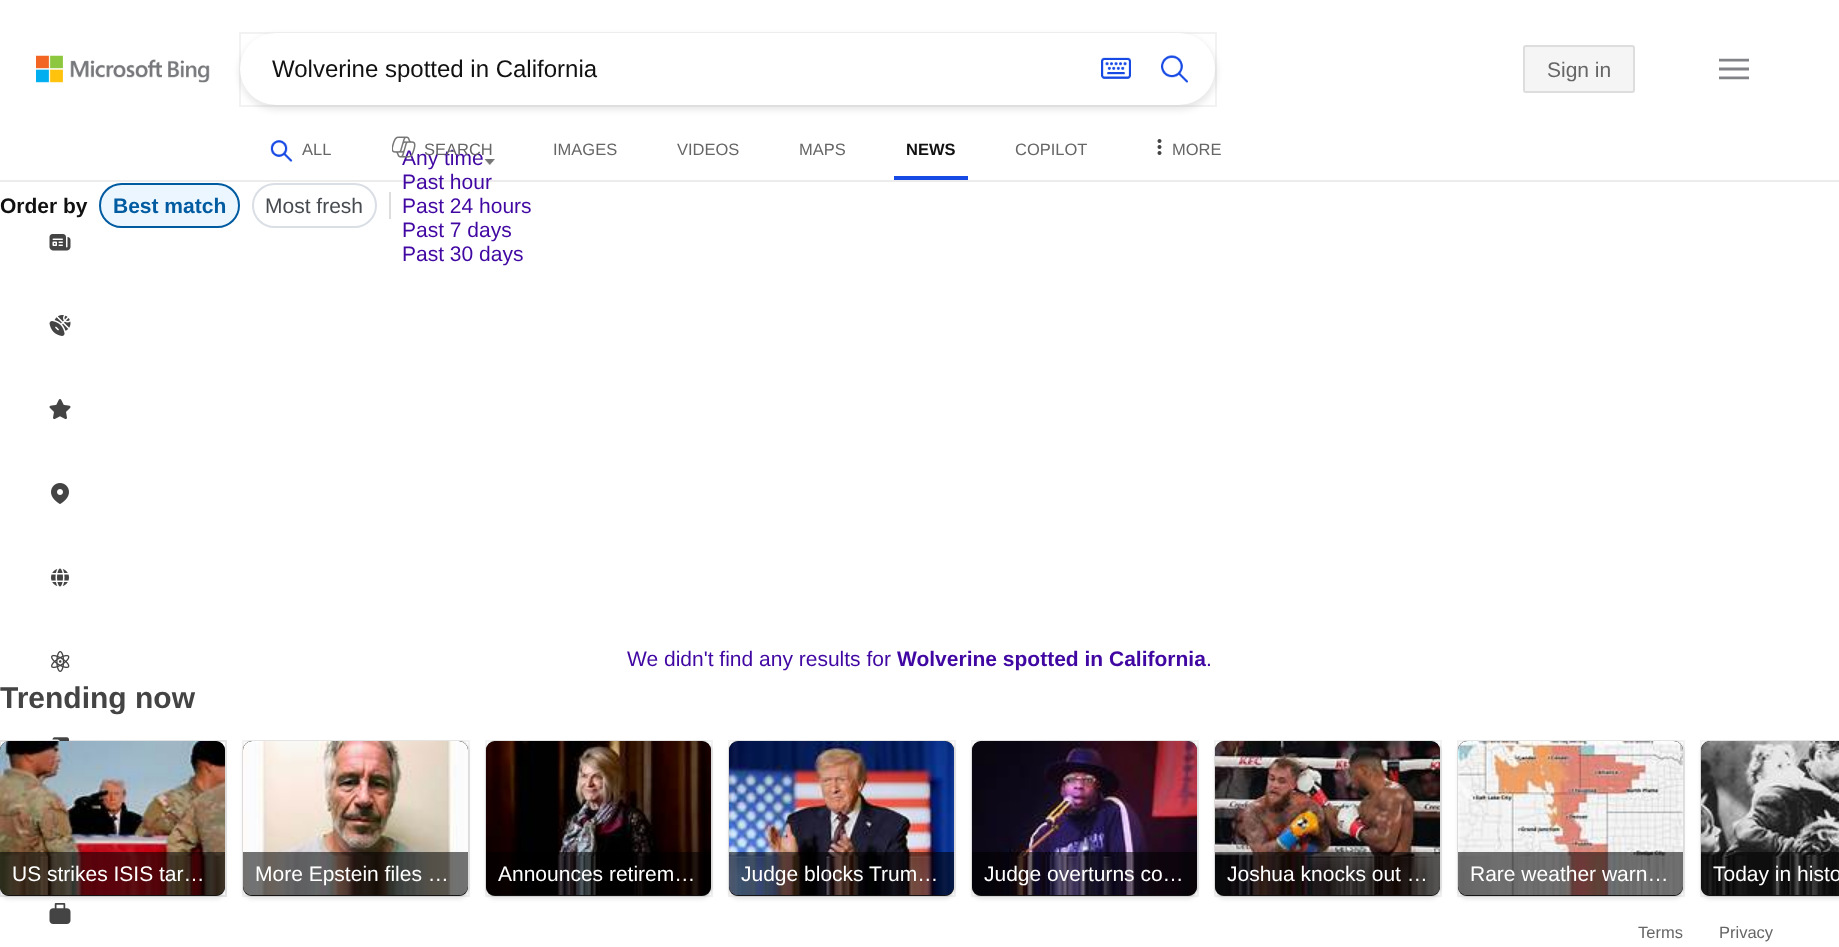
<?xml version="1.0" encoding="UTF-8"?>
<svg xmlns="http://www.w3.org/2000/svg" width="1839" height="947">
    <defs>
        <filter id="blur1" x="-50%" y="-200%" width="200%" height="500%"><feGaussianBlur stdDeviation="3"/></filter>
        <filter id="blur2" x="-50%" y="-200%" width="200%" height="500%"><feGaussianBlur stdDeviation="2"/></filter>
    </defs>
    <rect width="100%" height="100%" fill="#FFFFFF"/>
    <rect x="0" y="180" width="1839" height="2" fill="#ECECEC"/>
    <image x="36" y="55" width="174" height="28" href="img_01.png"/>
    <rect x="239" y="35" width="978" height="75" rx="37.5" fill="#000000" fill-opacity="0.09" filter="url(#blur1)"/>
    <rect x="240" y="33" width="976" height="73" fill="none" stroke="#000000" stroke-opacity="0.05" stroke-width="2"/>
    <rect x="240" y="33" width="975" height="72" rx="36" fill="#FFFFFF"/>
    <text x="272" y="77" font-family="Liberation Sans" font-size="24" fill="#111111">Wolverine spotted in California</text>
    <image x="1101" y="57" width="30" height="22" href="img_02.png"/>
    <image x="1161" y="55" width="27" height="28" href="img_03.png"/>
    <rect x="1524" y="46" width="110" height="46" rx="2" fill="#F5F5F5" stroke="#DDDDDD" stroke-width="2"/>
    <text x="1547" y="77" font-family="Liberation Sans" font-size="21" fill="#666666">Sign in</text>
    <image x="1719" y="58" width="30" height="22" href="img_04.png"/>
    <image x="270" y="140" width="23" height="22" href="img_05.png"/>
    <text x="302" y="155" font-family="Liberation Sans" font-size="16.5" fill="#666666">ALL</text>
    <text x="402" y="165" font-family="Liberation Sans" font-size="21" fill="#4007A2">Any time</text>
    <image x="392" y="136" width="24" height="22" href="img_06.png"/>
    <text x="424" y="155" font-family="Liberation Sans" font-size="16.5" fill="#666666">SEARCH</text>
    <text x="553" y="155" font-family="Liberation Sans" font-size="16.5" fill="#666666">IMAGES</text>
    <text x="677" y="155" font-family="Liberation Sans" font-size="16.5" fill="#666666">VIDEOS</text>
    <text x="799" y="155" font-family="Liberation Sans" font-size="16.5" fill="#666666">MAPS</text>
    <text x="906" y="155" font-family="Liberation Sans" font-size="16.5" font-weight="700" fill="#111111">NEWS</text>
    <rect x="894" y="176" width="74" height="4" fill="#174AE4"/>
    <text x="1015" y="155" font-family="Liberation Sans" font-size="16.5" fill="#666666">COPILOT</text>
    <image x="1157" y="139" width="5" height="16" href="img_07.png"/>
    <text x="1172" y="155" font-family="Liberation Sans" font-size="16.5" fill="#666666">MORE</text>
    <text x="0" y="213" font-family="Liberation Sans" font-size="21" font-weight="700" fill="#111111">Order by</text>
    <rect x="100" y="184" width="139" height="43" rx="21.5" fill="#EBF6FF" stroke="#005BA1" stroke-width="2"/>
    <text x="113" y="213" font-family="Liberation Sans" font-size="21" font-weight="700" fill="#005BA1">Best match</text>
    <rect x="253" y="184" width="123" height="43" rx="21.5" fill="none" stroke="#DADEE5" stroke-width="2"/>
    <text x="265" y="213" font-family="Liberation Sans" font-size="21" fill="#474B50">Most fresh</text>
    <rect x="389" y="192" width="2" height="27" fill="#DDDDDD"/>
    <image x="484" y="159" width="11" height="6" href="img_08.png"/>
    <text font-family="Liberation Sans" font-size="21" fill="#4007A2">
        <tspan x="402" y="189">Past hour</tspan>
        <tspan x="402" y="213">Past 24 hours</tspan>
        <tspan x="402" y="237">Past 7 days</tspan>
        <tspan x="402" y="261">Past 30 days</tspan>
    </text>
    <text x="627" y="666" font-family="Liberation Sans" font-size="21" fill="#4007A2">We didn't find any results for</text>
    <text x="897" y="666" font-family="Liberation Sans" font-size="21" font-weight="700" fill="#4007A2">Wolverine spotted in California</text>
    <text x="1206" y="666" font-family="Liberation Sans" font-size="21" fill="#4007A2">.</text>
    <text x="0" y="708" font-family="Liberation Sans" font-size="30" font-weight="700" fill="#444444">Trending now</text>
    <image x="52" y="737" width="17" height="4" href="img_31.png"/>
    <rect x="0" y="741" width="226" height="155" fill="none" stroke="#000000" stroke-opacity="0.05" stroke-width="2"/>
    <image x="49" y="903" width="22" height="21" href="img_32.png"/>
    <rect x="0" y="744" width="225" height="155" rx="9" fill="#000000" fill-opacity="0.1" filter="url(#blur2)"/>
    <rect x="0" y="741" width="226" height="155" fill="none" stroke="#000000" stroke-opacity="0.05" stroke-width="2"/>
    <rect x="0" y="741" width="225" height="155" rx="9" fill="#292827"/>
    <image x="0" y="741" width="225" height="117" href="img_09.png"/>
    <image x="0" y="858" width="225" height="38" href="img_10.png"/>
    <path d="M 0 852 H 225 V 887 C 225 892 221 896 216 896 H 9 C 4 896 0 892 0 887 Z" fill="#000000" fill-opacity="0.55"/>
    <text x="12" y="881" font-family="Liberation Sans" font-size="21" fill="#FFFFFF">US strikes ISIS tar…</text>
    <rect x="243" y="741" width="226" height="155" rx="10" fill="none" stroke="#F2F2F2" stroke-width="2"/>
    <rect x="243" y="744" width="225" height="155" rx="9" fill="#000000" fill-opacity="0.1" filter="url(#blur2)"/>
    <rect x="243" y="741" width="226" height="155" fill="none" stroke="#000000" stroke-opacity="0.05" stroke-width="2"/>
    <rect x="243" y="741" width="225" height="155" rx="9" fill="#292827"/>
    <image x="243" y="741" width="225" height="117" href="img_11.png"/>
    <image x="243" y="858" width="225" height="38" href="img_12.png"/>
    <path d="M 243 852 H 468 V 887 C 468 892 464 896 459 896 H 252 C 247 896 243 892 243 887 Z" fill="#000000" fill-opacity="0.55"/>
    <text x="255" y="881" font-family="Liberation Sans" font-size="21" fill="#FFFFFF">More Epstein files …</text>
    <rect x="486" y="741" width="226" height="155" rx="10" fill="none" stroke="#F2F2F2" stroke-width="2"/>
    <rect x="486" y="744" width="225" height="155" rx="9" fill="#000000" fill-opacity="0.1" filter="url(#blur2)"/>
    <rect x="486" y="741" width="226" height="155" fill="none" stroke="#000000" stroke-opacity="0.05" stroke-width="2"/>
    <rect x="486" y="741" width="225" height="155" rx="9" fill="#292827"/>
    <image x="486" y="741" width="225" height="117" href="img_13.png"/>
    <image x="486" y="858" width="225" height="38" href="img_14.png"/>
    <path d="M 486 852 H 711 V 887 C 711 892 707 896 702 896 H 495 C 490 896 486 892 486 887 Z" fill="#000000" fill-opacity="0.55"/>
    <text x="498" y="881" font-family="Liberation Sans" font-size="21" fill="#FFFFFF">Announces retirem…</text>
    <rect x="729" y="741" width="226" height="155" rx="10" fill="none" stroke="#F2F2F2" stroke-width="2"/>
    <rect x="729" y="744" width="225" height="155" rx="9" fill="#000000" fill-opacity="0.1" filter="url(#blur2)"/>
    <rect x="729" y="741" width="226" height="155" fill="none" stroke="#000000" stroke-opacity="0.05" stroke-width="2"/>
    <rect x="729" y="741" width="225" height="155" rx="9" fill="#292827"/>
    <image x="729" y="741" width="225" height="117" href="img_15.png"/>
    <image x="729" y="858" width="225" height="38" href="img_16.png"/>
    <path d="M 729 852 H 954 V 887 C 954 892 950 896 945 896 H 738 C 733 896 729 892 729 887 Z" fill="#000000" fill-opacity="0.55"/>
    <text x="741" y="881" font-family="Liberation Sans" font-size="21" fill="#FFFFFF">Judge blocks Trum…</text>
    <rect x="972" y="741" width="226" height="155" rx="10" fill="none" stroke="#F2F2F2" stroke-width="2"/>
    <rect x="972" y="744" width="225" height="155" rx="9" fill="#000000" fill-opacity="0.1" filter="url(#blur2)"/>
    <rect x="972" y="741" width="226" height="155" fill="none" stroke="#000000" stroke-opacity="0.05" stroke-width="2"/>
    <rect x="972" y="741" width="225" height="155" rx="9" fill="#292827"/>
    <image x="972" y="741" width="225" height="117" href="img_17.png"/>
    <image x="972" y="858" width="225" height="38" href="img_18.png"/>
    <path d="M 972 852 H 1197 V 887 C 1197 892 1193 896 1188 896 H 981 C 976 896 972 892 972 887 Z" fill="#000000" fill-opacity="0.55"/>
    <text x="984" y="881" font-family="Liberation Sans" font-size="21" fill="#FFFFFF">Judge overturns co…</text>
    <rect x="1215" y="741" width="226" height="155" rx="10" fill="none" stroke="#F2F2F2" stroke-width="2"/>
    <rect x="1215" y="744" width="225" height="155" rx="9" fill="#000000" fill-opacity="0.1" filter="url(#blur2)"/>
    <rect x="1215" y="741" width="226" height="155" fill="none" stroke="#000000" stroke-opacity="0.05" stroke-width="2"/>
    <rect x="1215" y="741" width="225" height="155" rx="9" fill="#292827"/>
    <image x="1215" y="741" width="225" height="117" href="img_19.png"/>
    <image x="1215" y="858" width="225" height="38" href="img_20.png"/>
    <path d="M 1215 852 H 1440 V 887 C 1440 892 1436 896 1431 896 H 1224 C 1219 896 1215 892 1215 887 Z" fill="#000000" fill-opacity="0.55"/>
    <text x="1227" y="881" font-family="Liberation Sans" font-size="21" fill="#FFFFFF">Joshua knocks out …</text>
    <rect x="1458" y="741" width="226" height="155" rx="10" fill="none" stroke="#F2F2F2" stroke-width="2"/>
    <rect x="1458" y="744" width="225" height="155" rx="9" fill="#000000" fill-opacity="0.1" filter="url(#blur2)"/>
    <rect x="1458" y="741" width="226" height="155" fill="none" stroke="#000000" stroke-opacity="0.05" stroke-width="2"/>
    <rect x="1458" y="741" width="225" height="155" rx="9" fill="#292827"/>
    <image x="1458" y="741" width="225" height="117" href="img_21.png"/>
    <image x="1458" y="858" width="225" height="38" href="img_22.png"/>
    <path d="M 1458 852 H 1683 V 887 C 1683 892 1679 896 1674 896 H 1467 C 1462 896 1458 892 1458 887 Z" fill="#000000" fill-opacity="0.55"/>
    <text x="1470" y="881" font-family="Liberation Sans" font-size="21" fill="#FFFFFF">Rare weather warn…</text>
    <rect x="1701" y="741" width="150" height="155" rx="10" fill="none" stroke="#F2F2F2" stroke-width="2"/>
    <rect x="1701" y="744" width="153" height="155" rx="9" fill="#000000" fill-opacity="0.1" filter="url(#blur2)"/>
    <rect x="1701" y="741" width="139" height="155" fill="none" stroke="#000000" stroke-opacity="0.05" stroke-width="2"/>
    <path d="M 1710 741 H 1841 V 896 H 1710 C 1705 896 1701 892 1701 887 V 750 C 1701 745 1705 741 1710 741 Z" fill="#292827"/>
    <image x="1701" y="741" width="138" height="117" href="img_23.png"/>
    <image x="1701" y="858" width="136" height="38" href="img_24.png"/>
    <path d="M 1701 852 H 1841 V 896 H 1710 C 1705 896 1701 892 1701 887 Z" fill="#000000" fill-opacity="0.55"/>
    <text x="1713" y="881" font-family="Liberation Sans" font-size="21" fill="#FFFFFF">Today in histo</text>
    <image x="49" y="234" width="22" height="17" href="img_25.png"/>
    <image x="49" y="315" width="22" height="21" href="img_26.png"/>
    <image x="49" y="399" width="22" height="21" href="img_27.png"/>
    <image x="51" y="483" width="18" height="21" href="img_28.png"/>
    <image x="51" y="568" width="18" height="19" href="img_29.png"/>
    <image x="51" y="651" width="19" height="21" href="img_30.png"/>
    <text x="1638" y="938" font-family="Liberation Sans" font-size="16.5" fill="#666666">Terms</text>
    <text x="1719" y="938" font-family="Liberation Sans" font-size="16.5" fill="#666666">Privacy</text>
</svg>
